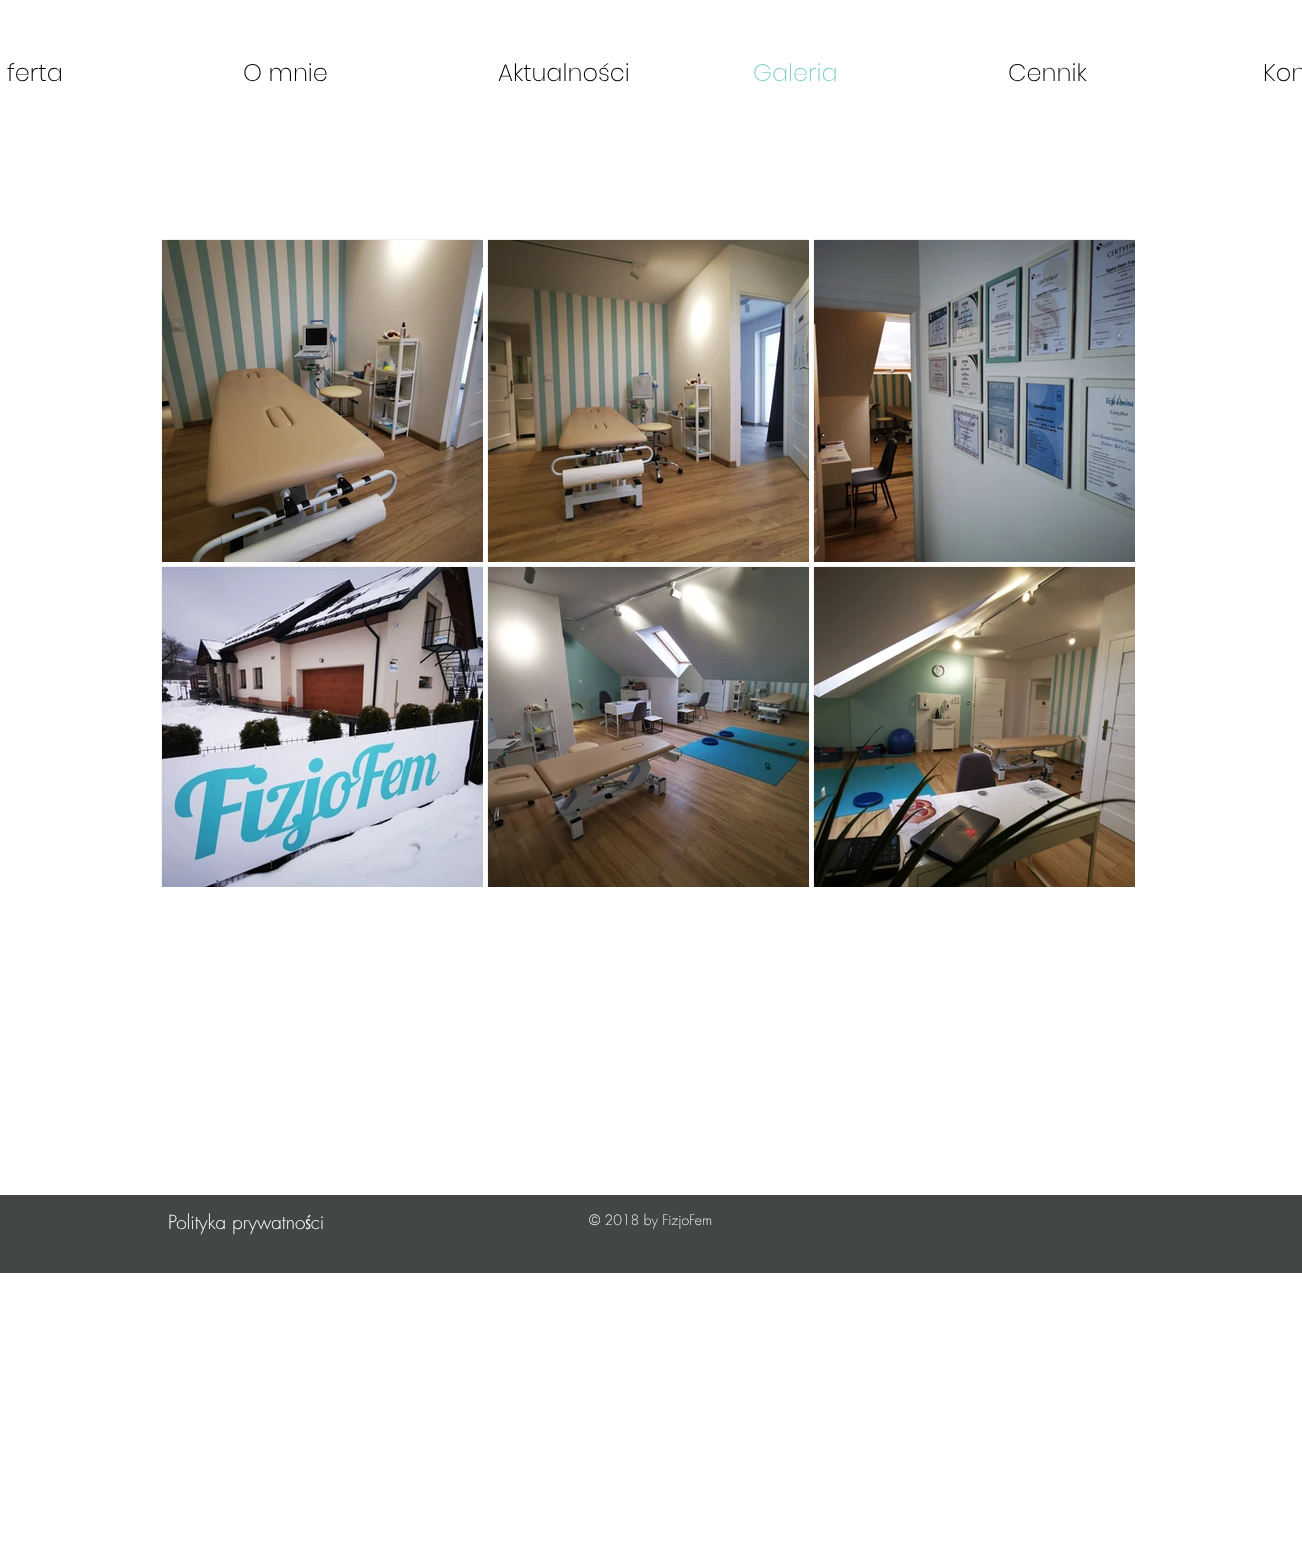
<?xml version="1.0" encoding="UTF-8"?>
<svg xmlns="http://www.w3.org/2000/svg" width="1302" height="1549">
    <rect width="100%" height="100%" fill="#FFFFFF"/>
    <text x="7" y="81" font-family="Poppins" font-size="24" font-weight="200" fill="#000000">ferta</text>
    <text x="243" y="81" font-family="Poppins" font-size="24" font-weight="200" fill="#000000">O mnie</text>
    <text x="498" y="81" font-family="Poppins" font-size="24" font-weight="200" fill="#000000">Aktualności</text>
    <text x="753" y="81" font-family="Poppins" font-size="24" font-weight="200" fill="#86D1CC">Galeria</text>
    <text x="1008" y="81" font-family="Poppins" font-size="24" font-weight="200" fill="#000000">Cennik</text>
    <text x="1263" y="81" font-family="Poppins" font-size="24" font-weight="200" fill="#000000">Kon</text>
    <rect x="161" y="239" width="321" height="322" fill="#F2F2F2"/>
    <image x="162" y="240" width="321" height="322" href="img_01.png"/>
    <rect x="161" y="566" width="321" height="321" fill="#F2F2F2"/>
    <image x="162" y="567" width="321" height="320" href="img_02.png"/>
    <rect x="487" y="239" width="321" height="322" fill="#F2F2F2"/>
    <image x="488" y="240" width="321" height="322" href="img_03.png"/>
    <rect x="487" y="566" width="321" height="321" fill="#F2F2F2"/>
    <image x="488" y="567" width="321" height="320" href="img_04.png"/>
    <rect x="813" y="239" width="321" height="322" fill="#F2F2F2"/>
    <image x="814" y="240" width="321" height="322" href="img_05.png"/>
    <rect x="813" y="566" width="321" height="321" fill="#F2F2F2"/>
    <image x="814" y="567" width="321" height="320" href="img_06.png"/>
    <rect x="0" y="1195" width="1302" height="78" fill="#424746"/>
    <text x="168" y="1229" font-family="futura" font-size="19" font-weight="300" fill="#FFFFFF">Polityka prywatności</text>
    <text x="589" y="1225" font-family="futura" font-size="14" font-weight="300" fill="#F0F2F2">© 2018 by FizjoFem</text>
</svg>
